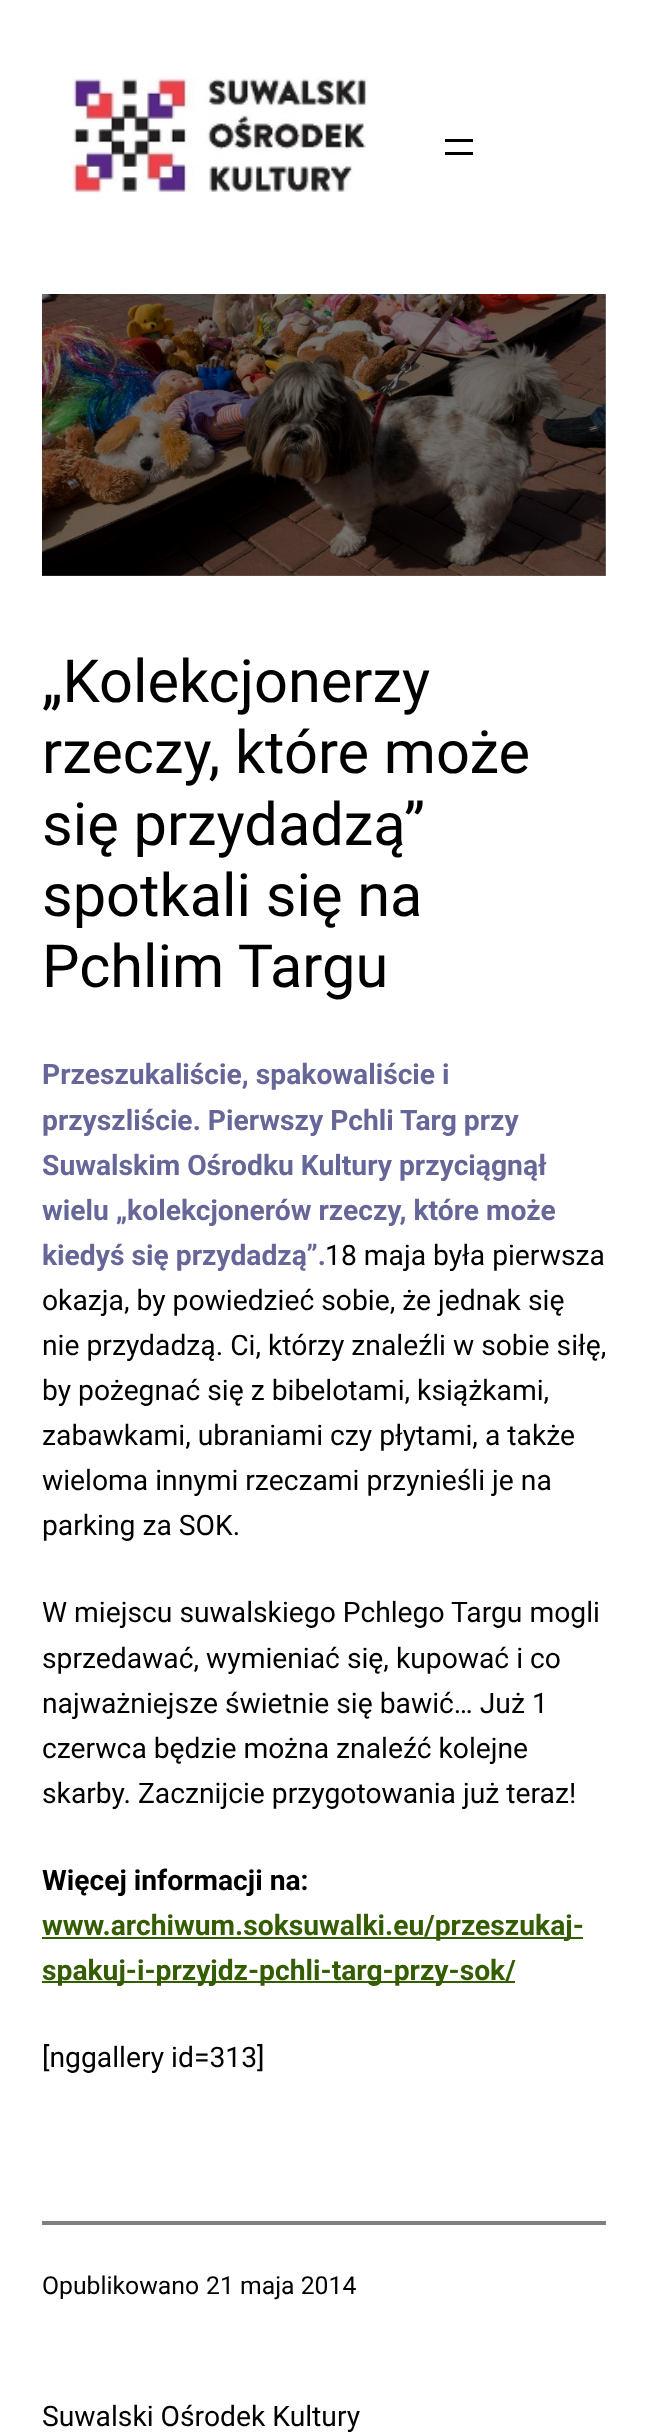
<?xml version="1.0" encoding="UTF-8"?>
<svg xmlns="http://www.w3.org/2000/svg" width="647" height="2436">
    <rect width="100%" height="100%" fill="#FFFFFF"/>
    <rect x="42" y="294" width="564" height="282" fill="#808080"/>
    <image x="71" y="77" width="297" height="117" href="img_01.png"/>
    <rect x="445" y="139" width="28" height="3" fill="#000000"/>
    <rect x="445" y="152" width="28" height="3" fill="#000000"/>
    <image x="42" y="294" width="564" height="282" href="img_02.png"/>
    <text font-family="Roboto" font-size="59.5" fill="#000000">
        <tspan x="42" y="702">„Kolekcjonerzy</tspan>
        <tspan x="42" y="773">rzeczy, które może</tspan>
        <tspan x="42" y="845">się przydadzą”</tspan>
        <tspan x="42" y="916">spotkali się na</tspan>
        <tspan x="42" y="987">Pchlim Targu</tspan>
    </text>
    <text font-family="Roboto" font-size="28.25" font-weight="700" fill="#666699">
        <tspan x="42" y="1084">Przeszukaliście, spakowaliście i</tspan>
        <tspan x="42" y="1130">przyszliście. Pierwszy Pchli Targ przy</tspan>
        <tspan x="42" y="1175">Suwalskim Ośrodku Kultury przyciągnął</tspan>
        <tspan x="42" y="1220">wielu „kolekcjonerów rzeczy, które może</tspan>
        <tspan x="42" y="1265">kiedyś się przydadzą”.</tspan>
    </text>
    <text x="325" y="1265" font-family="Roboto" font-size="28.25" fill="#000000">18 maja była pierwsza</text>
    <text font-family="Roboto" font-size="28.25" fill="#000000">
        <tspan x="42" y="1310">okazja, by powiedzieć sobie, że jednak się</tspan>
        <tspan x="42" y="1355">nie przydadzą. Ci, którzy znaleźli w sobie siłę,</tspan>
        <tspan x="42" y="1400">by pożegnać się z bibelotami, książkami,</tspan>
        <tspan x="42" y="1445">zabawkami, ubraniami czy płytami, a także</tspan>
        <tspan x="42" y="1490">wieloma innymi rzeczami przynieśli je na</tspan>
        <tspan x="42" y="1535">parking za SOK.</tspan>
    </text>
    <text font-family="Roboto" font-size="28.25" fill="#000000">
        <tspan x="42" y="1622">W miejscu suwalskiego Pchlego Targu mogli</tspan>
        <tspan x="42" y="1668">sprzedawać, wymieniać się, kupować i co</tspan>
        <tspan x="42" y="1713">najważniejsze świetnie się bawić… Już 1</tspan>
        <tspan x="42" y="1758">czerwca będzie można znaleźć kolejne</tspan>
        <tspan x="42" y="1803">skarby. Zacznijcie przygotowania już teraz!</tspan>
    </text>
    <text x="42" y="1890" font-family="Roboto" font-size="28.25" font-weight="700" fill="#000000">Więcej informacji na:</text>
    <rect x="42" y="1937" width="541" height="2" fill="#345C00"/>
    <text x="42" y="1935" font-family="Roboto" font-size="28.25" font-weight="700" fill="#345C00">www.archiwum.soksuwalki.eu/przeszukaj-</text>
    <rect x="42" y="1981" width="473" height="2" fill="#345C00"/>
    <text x="42" y="1980" font-family="Roboto" font-size="28.25" font-weight="700" fill="#345C00">spakuj-i-przyjdz-pchli-targ-przy-sok/</text>
    <text x="42" y="2067" font-family="Roboto" font-size="28.25" fill="#000000">[nggallery id=313]</text>
    <rect x="42" y="2221" width="564" height="4" fill="#808080"/>
    <text x="42" y="2294" font-family="Roboto" font-size="24.75" fill="#000000">Opublikowano</text>
    <text x="206" y="2294" font-family="Roboto" font-size="24.75" fill="#000000">21 maja 2014</text>
    <text x="42" y="2426" font-family="Roboto" font-size="28.25" fill="#000000">Suwalski Ośrodek Kultury</text>
</svg>
